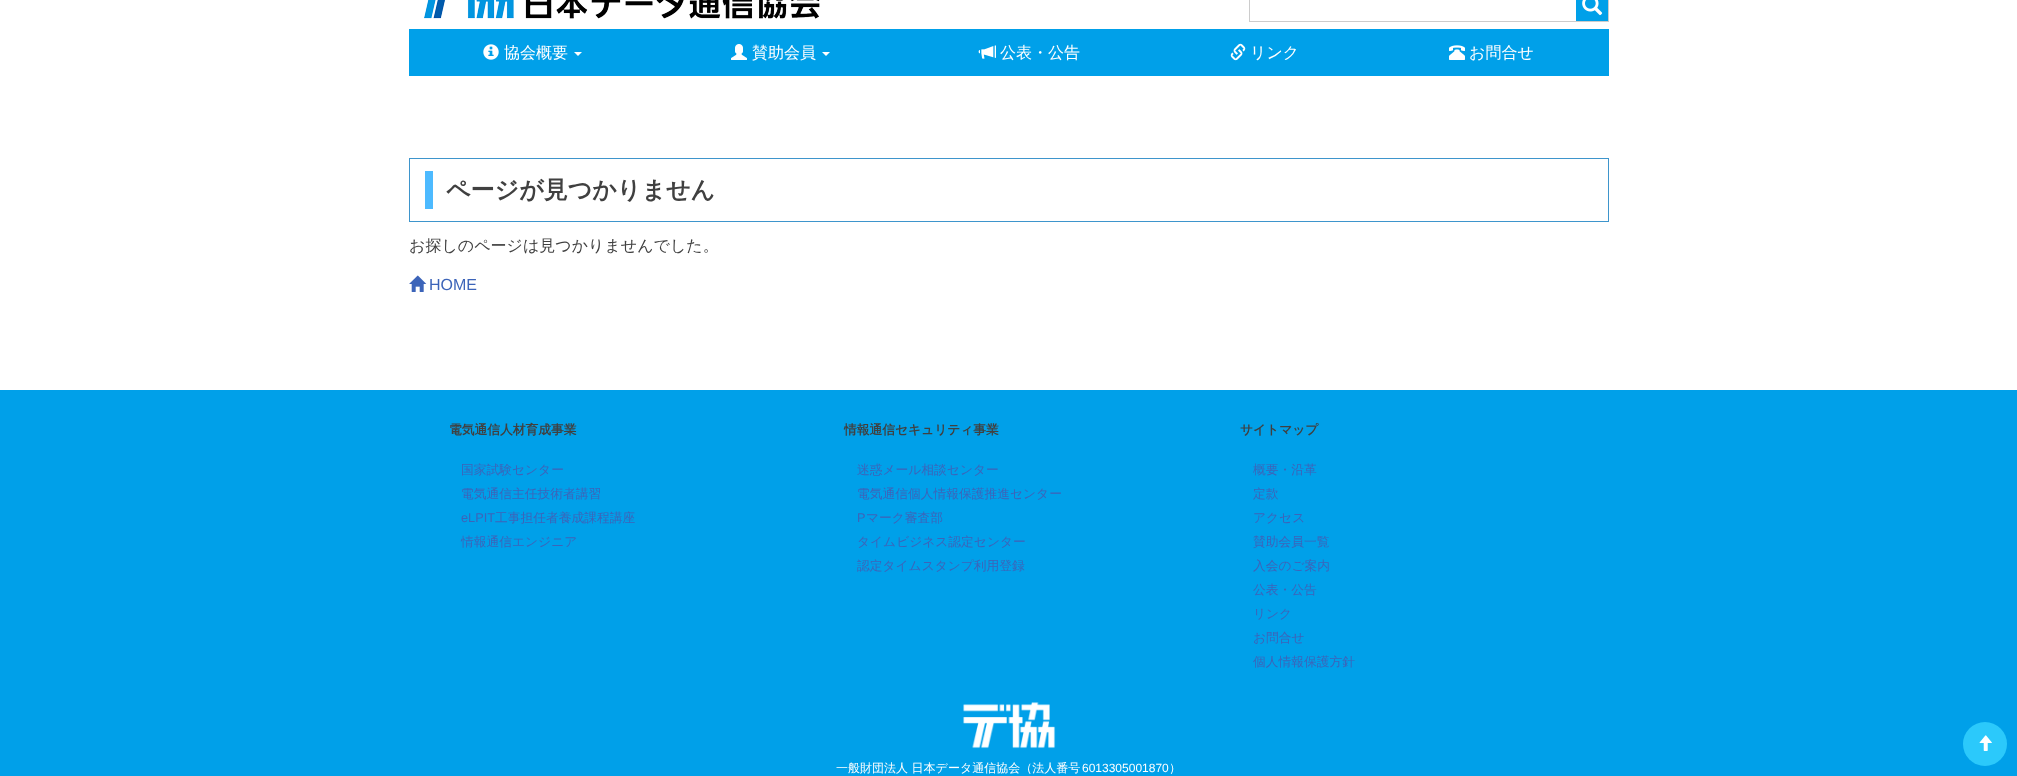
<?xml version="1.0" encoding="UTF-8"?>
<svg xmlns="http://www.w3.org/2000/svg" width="2017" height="776">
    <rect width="100%" height="100%" fill="#FFFFFF"/>
    <image x="424" y="0" width="396" height="19" href="img_01.png"/>
    <rect x="1608" y="0" width="1" height="22" fill="#CCCCCC"/>
    <rect x="1249" y="21" width="360" height="1" fill="#CCCCCC"/>
    <rect x="1249" y="0" width="1" height="22" fill="#CCCCCC"/>
    <rect x="1576" y="0" width="32" height="21" fill="#00A0E9"/>
    <image x="1582" y="0" width="21" height="16" href="img_02.png"/>
    <rect x="409" y="29" width="1200" height="47" fill="#00A0E9"/>
    <image x="483" y="44" width="16" height="16" href="img_03.png"/>
    <text x="504" y="58" font-family="WenQuanYi Zen Hei" font-size="16" font-weight="500" fill="#FFFFFF">協会概要</text>
    <path d="M 574 52 H 582 L 578 56 Z" fill="#FFFFFF"/>
    <image x="731" y="44" width="16" height="16" href="img_04.png"/>
    <text x="752" y="58" font-family="WenQuanYi Zen Hei" font-size="16" font-weight="500" fill="#FFFFFF">賛助会員</text>
    <path d="M 822 52 H 830 L 826 56 Z" fill="#FFFFFF"/>
    <image x="978" y="45" width="18" height="14" href="img_05.png"/>
    <text x="1000" y="58" font-family="WenQuanYi Zen Hei" font-size="16" font-weight="500" fill="#FFFFFF">公表・公告</text>
    <image x="1230" y="43" width="16" height="18" href="img_06.png"/>
    <text x="1250" y="58" font-family="WenQuanYi Zen Hei" font-size="16" font-weight="500" fill="#FFFFFF">リンク</text>
    <image x="1449" y="45" width="16" height="15" href="img_07.png"/>
    <text x="1469" y="58" font-family="WenQuanYi Zen Hei" font-size="16" font-weight="500" fill="#FFFFFF">お問合せ</text>
    <rect x="409.5" y="158.5" width="1199" height="63" fill="none" stroke="#3E95CC"/>
    <rect x="425" y="171" width="8" height="38" fill="#4DBAFF"/>
    <text x="446" y="198" font-family="WenQuanYi Zen Hei" font-size="24" font-weight="700" fill="#404040">ページが見つかりません</text>
    <text x="409" y="251" font-family="WenQuanYi Zen Hei" font-size="16" font-weight="500" fill="#404040">お探しのページは見つかりませんでした。</text>
    <image x="409" y="275" width="18" height="17" href="img_08.png"/>
    <text x="429" y="290" font-family="Liberation Sans" font-size="16" fill="#3C64B9">HOME</text>
    <rect x="0" y="390" width="2017" height="386" fill="#00A0E9"/>
    <text x="449" y="434" font-family="WenQuanYi Zen Hei" font-size="12.75" font-weight="700" fill="#404040">電気通信人材育成事業</text>
    <text font-family="WenQuanYi Zen Hei" font-size="12.75" font-weight="500" fill="#3C64B9">
        <tspan x="461" y="474">国家試験センター</tspan>
        <tspan x="461" y="498">電気通信主任技術者講習</tspan>
    </text>
    <text x="461" y="522" font-family="Liberation Sans" font-size="12.75" fill="#3C64B9">eLPIT</text>
    <text x="495" y="522" font-family="WenQuanYi Zen Hei" font-size="12.75" font-weight="500" fill="#3C64B9">工事担任者養成課程講座</text>
    <text x="461" y="546" font-family="WenQuanYi Zen Hei" font-size="12.75" font-weight="500" fill="#3C64B9">情報通信エンジニア</text>
    <text x="844" y="434" font-family="WenQuanYi Zen Hei" font-size="12.75" font-weight="700" fill="#404040">情報通信セキュリティ事業</text>
    <text font-family="WenQuanYi Zen Hei" font-size="12.75" font-weight="500" fill="#3C64B9">
        <tspan x="857" y="474">迷惑メール相談センター</tspan>
        <tspan x="857" y="498">電気通信個人情報保護推進センター</tspan>
    </text>
    <text x="857" y="522" font-family="Liberation Sans" font-size="12.75" fill="#3C64B9">P</text>
    <text x="866" y="522" font-family="WenQuanYi Zen Hei" font-size="12.75" font-weight="500" fill="#3C64B9">マーク審査部</text>
    <text font-family="WenQuanYi Zen Hei" font-size="12.75" font-weight="500" fill="#3C64B9">
        <tspan x="857" y="546">タイムビジネス認定センター</tspan>
        <tspan x="857" y="570">認定タイムスタンプ利用登録</tspan>
    </text>
    <text x="1240" y="434" font-family="WenQuanYi Zen Hei" font-size="12.75" font-weight="700" fill="#404040">サイトマップ</text>
    <text font-family="WenQuanYi Zen Hei" font-size="12.75" font-weight="500" fill="#3C64B9">
        <tspan x="1253" y="474">概要・沿革</tspan>
        <tspan x="1253" y="498">定款</tspan>
        <tspan x="1253" y="522">アクセス</tspan>
        <tspan x="1253" y="546">賛助会員一覧</tspan>
        <tspan x="1253" y="570">入会のご案内</tspan>
        <tspan x="1253" y="594">公表・公告</tspan>
        <tspan x="1253" y="618">リンク</tspan>
        <tspan x="1253" y="642">お問合せ</tspan>
        <tspan x="1253" y="666">個人情報保護方針</tspan>
    </text>
    <image x="963" y="702" width="93" height="47" href="img_09.png"/>
    <text x="836" y="772" font-family="WenQuanYi Zen Hei" font-size="12" font-weight="500" fill="#FFFFFF">一般財団法人 日本データ通信協会（法人番号</text>
    <text x="1082" y="772" font-family="Liberation Sans" font-size="12" fill="#FFFFFF">6013305001870</text>
    <text x="1169" y="772" font-family="WenQuanYi Zen Hei" font-size="12" font-weight="500" fill="#FFFFFF">）</text>
    <circle cx="1985" cy="744" r="22" fill="#2BC9FB"/>
    <image x="1979" y="735" width="13" height="16" href="img_10.png"/>
</svg>
